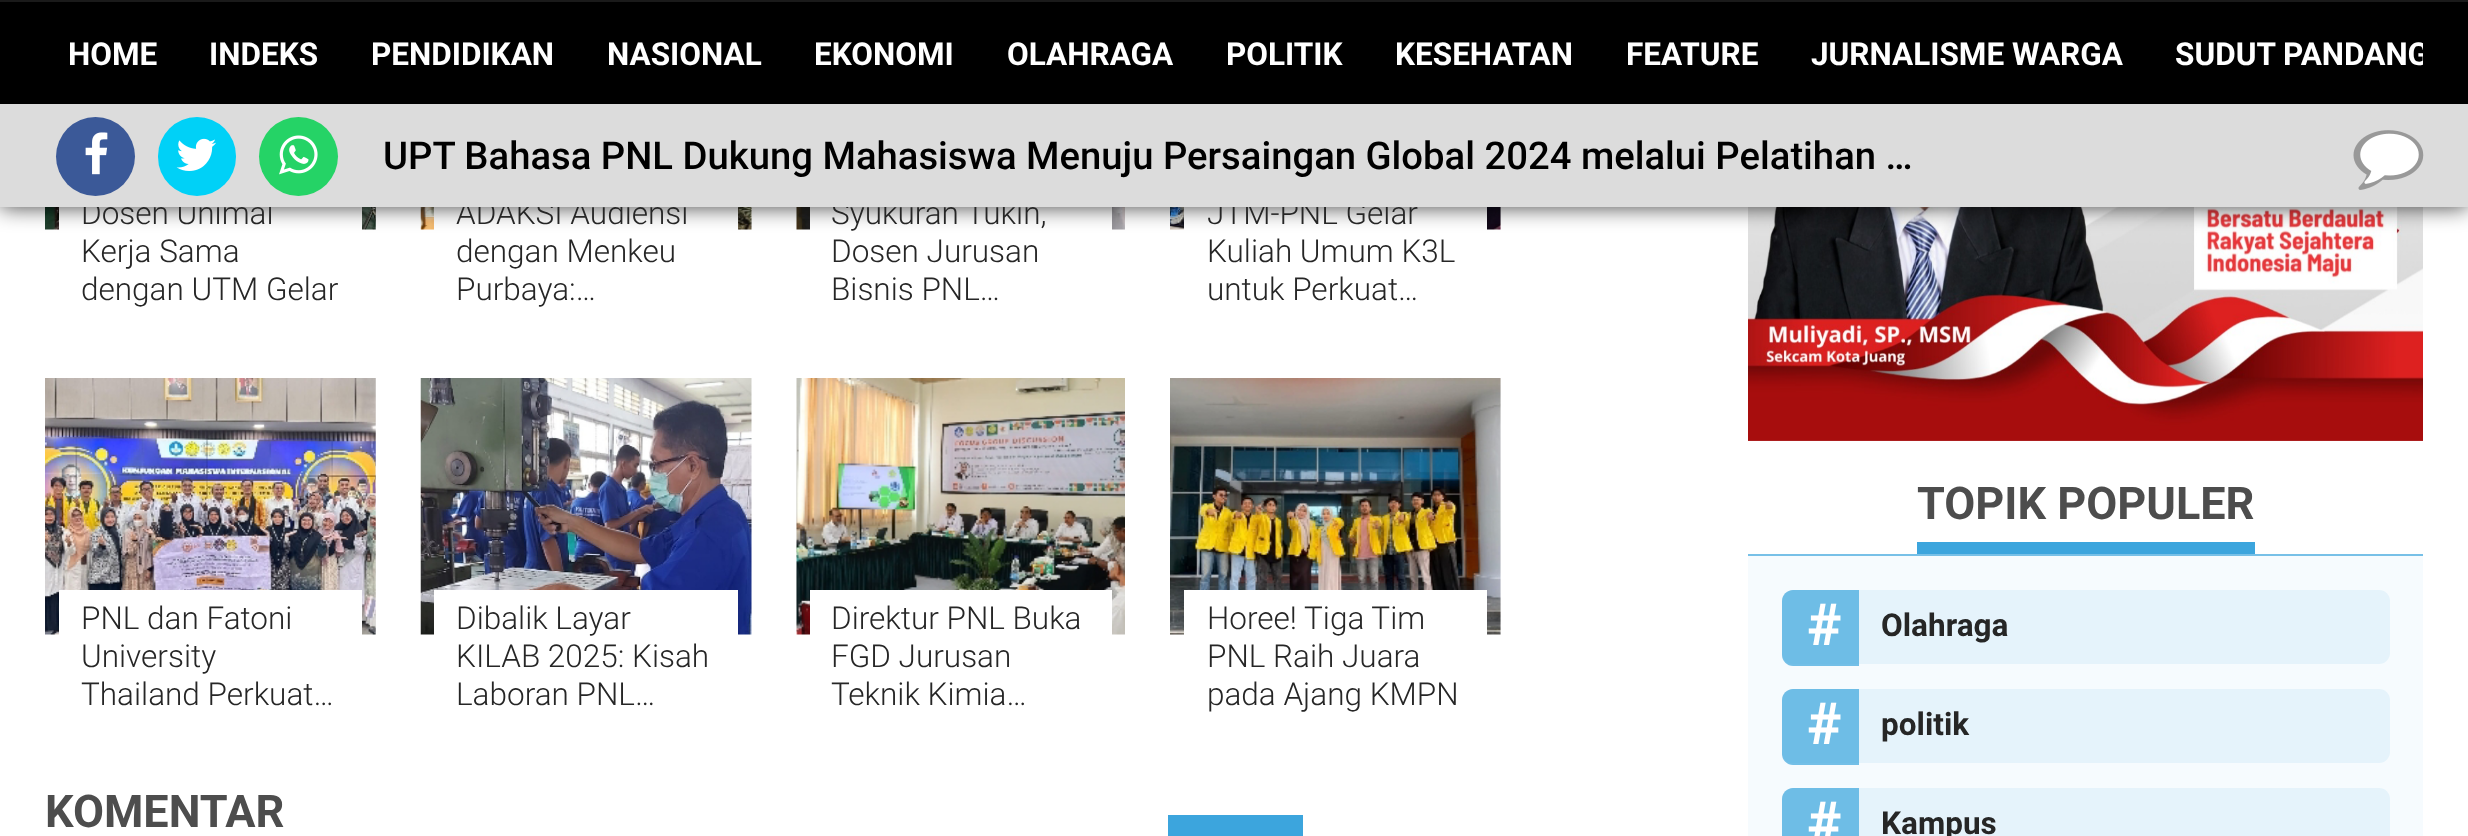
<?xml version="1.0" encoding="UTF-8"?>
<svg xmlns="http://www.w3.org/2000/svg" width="2468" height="836">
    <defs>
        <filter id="blur1" x="-50%" y="-200%" width="200%" height="500%"><feGaussianBlur stdDeviation="11"/></filter>
        <clipPath id="clip1"><rect x="45" y="2" width="2378" height="102"/></clipPath>
    </defs>
    <rect width="100%" height="100%" fill="#FFFFFF"/>
    <image x="45" y="207" width="331" height="23" href="img_06.png"/>
    <rect x="59" y="207" width="303" height="23" fill="#FFFFFF"/>
    <image x="420" y="207" width="332" height="23" href="img_07.png"/>
    <rect x="434" y="207" width="304" height="23" fill="#FFFFFF"/>
    <image x="796" y="207" width="329" height="23" href="img_08.png"/>
    <rect x="810" y="207" width="302" height="23" fill="#FFFFFF"/>
    <image x="1170" y="207" width="331" height="23" href="img_09.png"/>
    <rect x="1184" y="207" width="303" height="23" fill="#FFFFFF"/>
    <image x="1748" y="207" width="675" height="234" href="img_14.png"/>
    <rect x="0" y="104" width="2468" height="103" fill="#000000" fill-opacity="0.75" filter="url(#blur1)"/>
    <rect x="0" y="2" width="2468" height="102" fill="#000000"/>
    <rect x="0" y="0" width="2468" height="2" fill="#1A1A1A"/>
    <text x="68" y="65" font-family="Roboto" font-size="31.5" font-weight="700" fill="#FFFFFF">HOME</text>
    <text x="209" y="65" font-family="Roboto" font-size="31.5" font-weight="700" fill="#FFFFFF">INDEKS</text>
    <text x="371" y="65" font-family="Roboto" font-size="31.5" font-weight="700" fill="#FFFFFF">PENDIDIKAN</text>
    <text x="607" y="65" font-family="Roboto" font-size="31.5" font-weight="700" fill="#FFFFFF">NASIONAL</text>
    <text x="814" y="65" font-family="Roboto" font-size="31.5" font-weight="700" fill="#FFFFFF">EKONOMI</text>
    <text x="1007" y="65" font-family="Roboto" font-size="31.5" font-weight="700" fill="#FFFFFF">OLAHRAGA</text>
    <text x="1226" y="65" font-family="Roboto" font-size="31.5" font-weight="700" fill="#FFFFFF">POLITIK</text>
    <text x="1395" y="65" font-family="Roboto" font-size="31.5" font-weight="700" fill="#FFFFFF">KESEHATAN</text>
    <text x="1626" y="65" font-family="Roboto" font-size="31.5" font-weight="700" fill="#FFFFFF">FEATURE</text>
    <text x="1811" y="65" font-family="Roboto" font-size="31.5" font-weight="700" fill="#FFFFFF">JURNALISME WARGA</text>
    <g clip-path="url(#clip1)">
        <text x="2175" y="65" font-family="Roboto" font-size="31.5" font-weight="700" fill="#FFFFFF">SUDUT PANDANG</text>
    </g>
    <text x="81" y="224" font-family="Roboto" font-size="31.5" font-weight="300" fill="#262626">Dosen Unimal</text>
    <text x="456" y="224" font-family="Roboto" font-size="31.5" font-weight="300" fill="#262626">ADAKSI Audiensi</text>
    <text x="831" y="224" font-family="Roboto" font-size="31.5" font-weight="300" fill="#262626">Syukuran Tukin,</text>
    <text x="1207" y="224" font-family="Roboto" font-size="31.5" font-weight="300" fill="#262626">JTM-PNL Gelar</text>
    <rect x="0" y="104" width="2468" height="103" fill="#DCDCDC"/>
    <circle cx="95.5" cy="156.5" r="39.5" fill="#3B5998"/>
    <image x="85" y="132" width="23" height="43" href="img_01.png"/>
    <rect x="158" y="117" width="78" height="79" rx="39" fill="#00D1F7"/>
    <image x="176" y="138" width="40" height="33" href="img_02.png"/>
    <circle cx="298.5" cy="156.5" r="39.5" fill="#25D366"/>
    <image x="279" y="135" width="39" height="40" href="img_03.png"/>
    <text x="383" y="169" font-family="Roboto" font-size="38.25" font-weight="500" fill="#000000">UPT Bahasa PNL Dukung Mahasiswa Menuju Persaingan Global 2024 melalui Pelatihan …</text>
    <image x="2353" y="130" width="71" height="60" href="img_04.png"/>
    <image x="2360" y="133" width="59" height="51" href="img_05.png"/>
    <text font-family="Roboto" font-size="31.5" font-weight="300" fill="#262626">
        <tspan x="81" y="262">Kerja Sama</tspan>
        <tspan x="81" y="300">dengan UTM Gelar</tspan>
    </text>
    <text font-family="Roboto" font-size="31.5" font-weight="300" fill="#262626">
        <tspan x="456" y="262">dengan Menkeu</tspan>
        <tspan x="456" y="300">Purbaya:…</tspan>
    </text>
    <text font-family="Roboto" font-size="31.5" font-weight="300" fill="#262626">
        <tspan x="831" y="262">Dosen Jurusan</tspan>
        <tspan x="831" y="300">Bisnis PNL…</tspan>
    </text>
    <text font-family="Roboto" font-size="31.5" font-weight="300" fill="#262626">
        <tspan x="1207" y="262">Kuliah Umum K3L</tspan>
        <tspan x="1207" y="300">untuk Perkuat…</tspan>
    </text>
    <image x="45" y="378" width="331" height="257" href="img_10.png"/>
    <rect x="59" y="590" width="303" height="45" fill="#FFFFFF"/>
    <text font-family="Roboto" font-size="31.5" font-weight="300" fill="#262626">
        <tspan x="81" y="629">PNL dan Fatoni</tspan>
        <tspan x="81" y="667">University</tspan>
        <tspan x="81" y="705">Thailand Perkuat…</tspan>
    </text>
    <image x="420" y="378" width="332" height="257" href="img_11.png"/>
    <rect x="434" y="590" width="304" height="45" fill="#FFFFFF"/>
    <text font-family="Roboto" font-size="31.5" font-weight="300" fill="#262626">
        <tspan x="456" y="629">Dibalik Layar</tspan>
        <tspan x="456" y="667">KILAB 2025: Kisah</tspan>
        <tspan x="456" y="705">Laboran PNL…</tspan>
    </text>
    <image x="796" y="378" width="329" height="257" href="img_12.png"/>
    <rect x="810" y="590" width="302" height="45" fill="#FFFFFF"/>
    <text font-family="Roboto" font-size="31.5" font-weight="300" fill="#262626">
        <tspan x="831" y="629">Direktur PNL Buka</tspan>
        <tspan x="831" y="667">FGD Jurusan</tspan>
        <tspan x="831" y="705">Teknik Kimia…</tspan>
    </text>
    <image x="1170" y="378" width="331" height="257" href="img_13.png"/>
    <rect x="1184" y="590" width="303" height="45" fill="#FFFFFF"/>
    <text font-family="Roboto" font-size="31.5" font-weight="300" fill="#262626">
        <tspan x="1207" y="629">Horee! Tiga Tim</tspan>
        <tspan x="1207" y="667">PNL Raih Juara</tspan>
        <tspan x="1207" y="705">pada Ajang KMPN</tspan>
    </text>
    <text x="45" y="827" font-family="Roboto" font-size="45" font-weight="700" fill="#4D4D4D">KOMENTAR</text>
    <rect x="1748" y="554" width="675" height="2" fill="#77C0E7"/>
    <text x="1917" y="519" font-family="Roboto" font-size="45" font-weight="700" fill="#4D4D4D">TOPIK POPULER</text>
    <rect x="1917" y="542" width="338" height="12" fill="#3CA5DD"/>
    <rect x="1748" y="556" width="675" height="280" fill="#F6FBFE"/>
    <rect x="1782" y="590" width="608" height="74" rx="11" fill="#E5F3FB"/>
    <path d="M 1793 590 H 1859 V 666 H 1793 C 1787 666 1782 661 1782 655 V 601 C 1782 595 1787 590 1793 590 Z" fill="#3CA5DD" fill-opacity="0.7"/>
    <text x="1807" y="645" font-family="'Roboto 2'" font-size="58" font-weight="700" letter-spacing="-9" fill="#FFFFFF">#</text>
    <text x="1881" y="636" font-family="'Roboto 2'" font-size="31.5" font-weight="700" fill="#262626">Olahraga</text>
    <rect x="1782" y="689" width="608" height="74" rx="11" fill="#E5F3FB"/>
    <path d="M 1793 689 H 1859 V 765 H 1793 C 1787 765 1782 760 1782 754 V 700 C 1782 694 1787 689 1793 689 Z" fill="#3CA5DD" fill-opacity="0.7"/>
    <text x="1807" y="744" font-family="'Roboto 2'" font-size="58" font-weight="700" letter-spacing="-9" fill="#FFFFFF">#</text>
    <text x="1881" y="735" font-family="'Roboto 2'" font-size="31.5" font-weight="700" fill="#262626">politik</text>
    <rect x="1782" y="788" width="608" height="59" rx="11" fill="#E5F3FB"/>
    <path d="M 1793 788 H 1859 V 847 H 1793 C 1787 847 1782 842 1782 836 V 799 C 1782 793 1787 788 1793 788 Z" fill="#3CA5DD" fill-opacity="0.7"/>
    <text x="1807" y="843" font-family="'Roboto 2'" font-size="58" font-weight="700" letter-spacing="-9" fill="#FFFFFF">#</text>
    <text x="1881" y="834" font-family="'Roboto 2'" font-size="31.5" font-weight="700" fill="#262626">Kampus</text>
    <rect x="1168" y="815" width="135" height="21" fill="#3CA5DD"/>
</svg>
